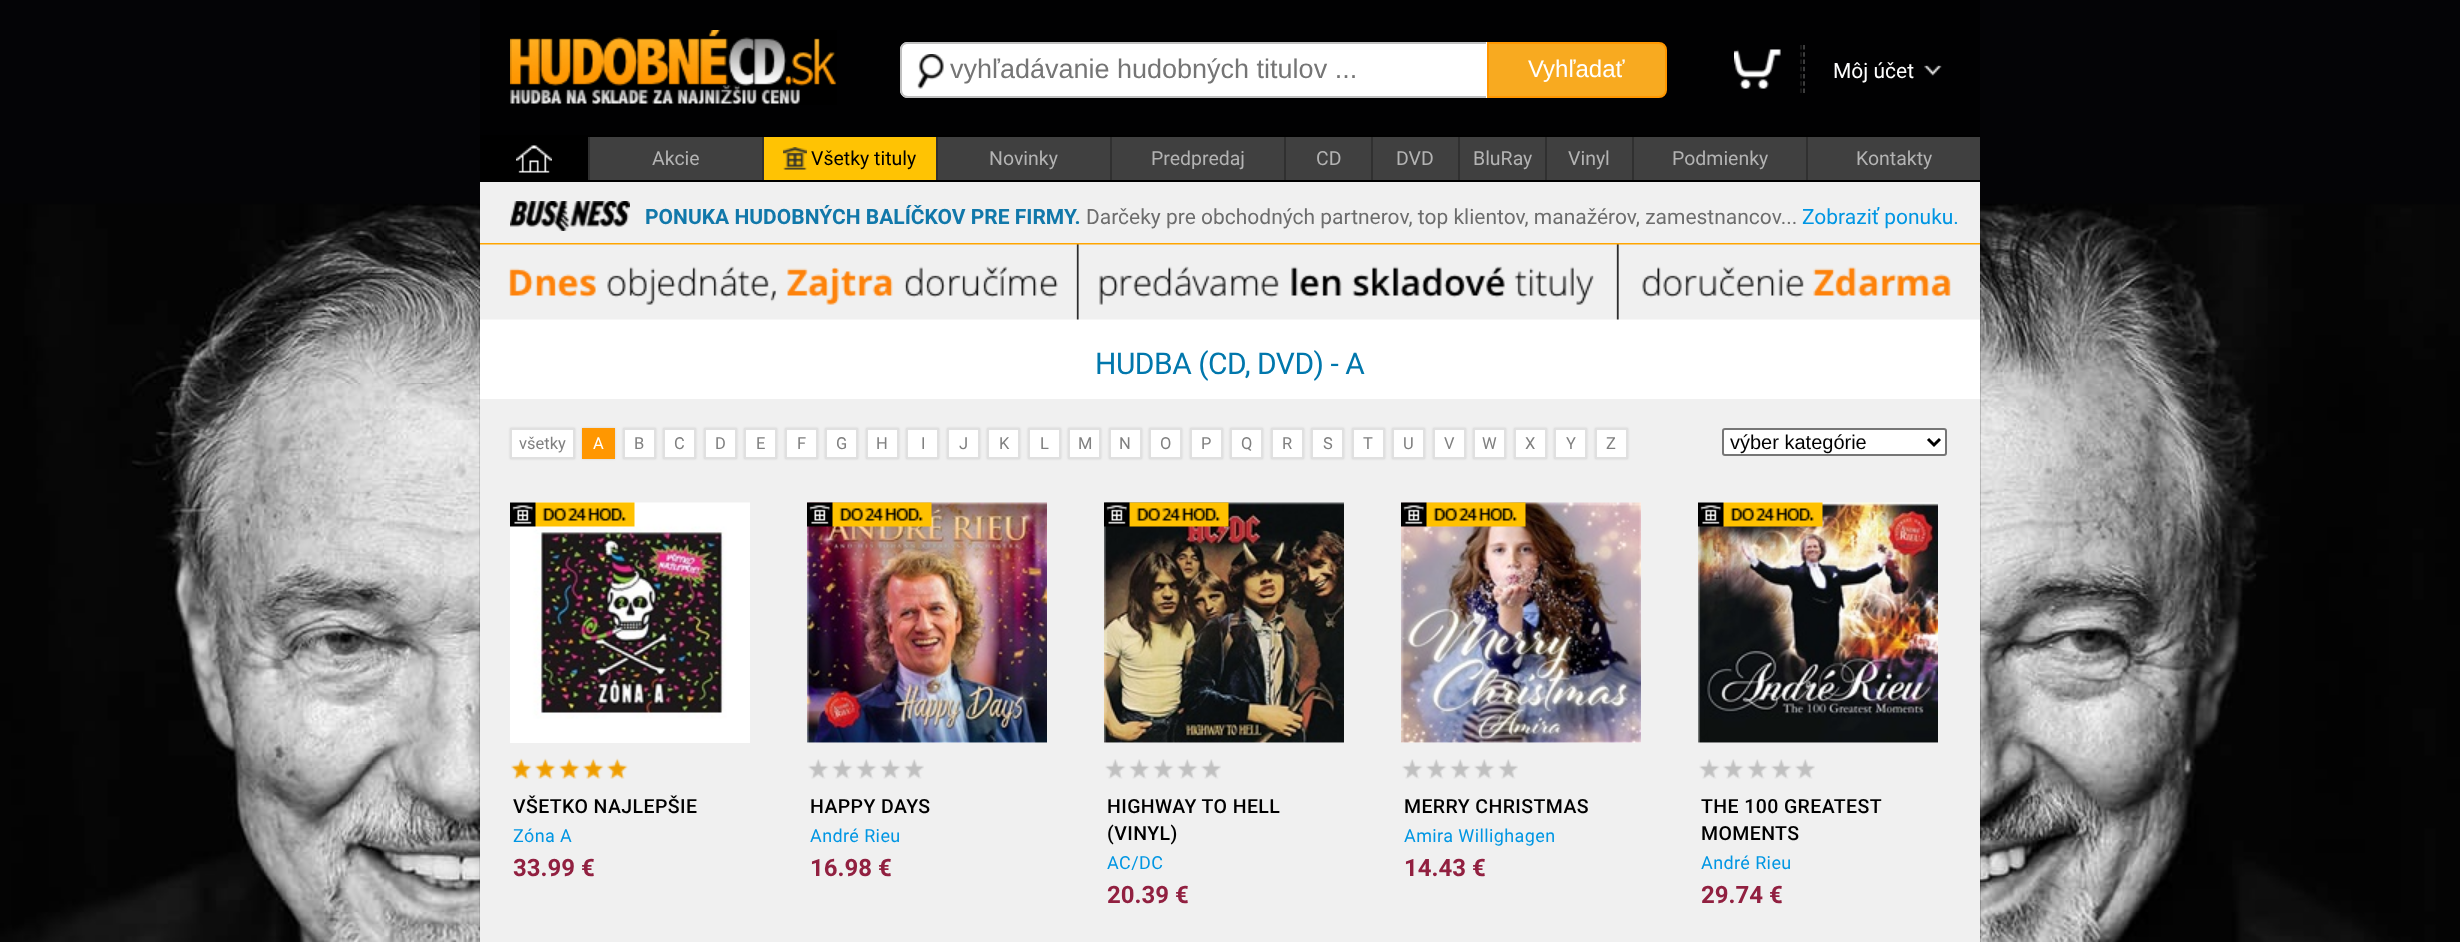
<?xml version="1.0" encoding="UTF-8"?>
<svg xmlns="http://www.w3.org/2000/svg" width="2460" height="942">
    <defs>
        <filter id="blur1" x="-50%" y="-200%" width="200%" height="500%"><feGaussianBlur stdDeviation="1"/></filter>
    </defs>
    <rect width="100%" height="100%" fill="#FFFFFF"/>
    <image x="0" y="0" width="2460" height="942" href="img_01.png"/>
    <rect x="480" y="0" width="1500" height="135" fill="#000000" fill-opacity="0.6"/>
    <image x="510" y="30" width="327" height="75" href="img_02.png"/>
    <path d="M 908 42 H 1487 V 98 H 908 C 903.5 98 900 94.5 900 90 V 50 C 900 45.5 903.5 42 908 42 Z" fill="#FFFFFF"/>
    <path d="M 908 42 H 1486 V 98 H 908 C 903 98 900 94 900 90 V 50 C 900 45 903 42 908 42 Z M 908 44 H 1486 V 96 H 908 C 904 96 902 93 902 90 V 50 C 902 46 904 44 908 44 Z" fill="#C0C0C0" fill-rule="evenodd"/>
    <image x="917" y="54" width="27" height="35" href="img_03.png"/>
    <text x="950" y="78" font-family="Liberation Sans" font-size="27" fill="#757575">vyhľadávanie hudobných titulov ...</text>
    <path d="M 1488 43 H 1659 C 1663 43 1666 46 1666 50 V 90 C 1666 94 1663 97 1659 97 H 1488 Z" fill="#F8AA20" stroke="#FF9600" stroke-width="2"/>
    <text x="1528" y="77" font-family="Liberation Sans" font-size="24" fill="#FFFFFF">Vyhľadať</text>
    <image x="1734" y="49" width="47" height="40" href="img_04.png"/>
    <path d="M 1804 45 V 93" fill="none" stroke="#505050" stroke-width="1.5" stroke-dasharray="4.5 2.75"/>
    <path d="M 1801 45 V 93" fill="none" stroke="#202020" stroke-width="1.5" stroke-dasharray="4.5 2.75"/>
    <image x="1924" y="65" width="18" height="11" href="img_05.png"/>
    <text x="1833" y="78" font-family="Roboto" font-size="21" fill="#FFFFFF">Môj účet</text>
    <rect x="480" y="135" width="1500" height="47" fill="#000000"/>
    <image x="516" y="145" width="36" height="28" href="img_06.png"/>
    <rect x="588" y="137" width="2" height="43" fill="#303030"/>
    <rect x="590" y="137" width="172" height="43" fill="#404040"/>
    <text x="652" y="165" font-family="Roboto" font-size="19.5" fill="#B3B3B3">Akcie</text>
    <rect x="762" y="137" width="2" height="43" fill="#303030"/>
    <rect x="764" y="137" width="172" height="43" fill="#FFC303"/>
    <image x="783" y="147" width="24" height="23" href="img_07.png"/>
    <text x="811" y="165" font-family="Roboto" font-size="19.5" fill="#000000">Všetky tituly</text>
    <rect x="936" y="137" width="2" height="43" fill="#303030"/>
    <rect x="938" y="137" width="172" height="43" fill="#404040"/>
    <text x="989" y="165" font-family="Roboto" font-size="19.5" fill="#B3B3B3">Novinky</text>
    <rect x="1110" y="137" width="2" height="43" fill="#303030"/>
    <rect x="1112" y="137" width="172" height="43" fill="#404040"/>
    <text x="1151" y="165" font-family="Roboto" font-size="19.5" fill="#B3B3B3">Predpredaj</text>
    <rect x="1284" y="137" width="2" height="43" fill="#303030"/>
    <rect x="1286" y="137" width="85" height="43" fill="#404040"/>
    <text x="1316" y="165" font-family="Roboto" font-size="19.5" fill="#B3B3B3">CD</text>
    <rect x="1371" y="137" width="2" height="43" fill="#303030"/>
    <rect x="1373" y="137" width="85" height="43" fill="#404040"/>
    <text x="1396" y="165" font-family="Roboto" font-size="19.5" fill="#B3B3B3">DVD</text>
    <rect x="1458" y="137" width="2" height="43" fill="#303030"/>
    <rect x="1460" y="137" width="85" height="43" fill="#404040"/>
    <text x="1473" y="165" font-family="Roboto" font-size="19.5" fill="#B3B3B3">BluRay</text>
    <rect x="1545" y="137" width="2" height="43" fill="#303030"/>
    <rect x="1547" y="137" width="85" height="43" fill="#404040"/>
    <text x="1568" y="165" font-family="Roboto" font-size="19.5" fill="#B3B3B3">Vinyl</text>
    <rect x="1632" y="137" width="2" height="43" fill="#303030"/>
    <rect x="1634" y="137" width="172" height="43" fill="#404040"/>
    <text x="1672" y="165" font-family="Roboto" font-size="19.5" fill="#B3B3B3">Podmienky</text>
    <rect x="1806" y="137" width="2" height="43" fill="#303030"/>
    <rect x="1808" y="137" width="172" height="43" fill="#404040"/>
    <text x="1856" y="165" font-family="Roboto" font-size="19.5" fill="#B3B3B3">Kontakty</text>
    <rect x="480" y="319" width="1500" height="80" fill="#FFFFFF"/>
    <rect x="480" y="182" width="1500" height="61" fill="#F0F0F0"/>
    <rect x="480" y="243" width="1500" height="2" fill="#FFA500"/>
    <image x="510" y="201" width="120" height="30" href="img_08.png"/>
    <text x="645" y="224" font-family="Roboto" font-size="21" font-weight="700" fill="#1178AA">PONUKA HUDOBNÝCH BALÍČKOV PRE FIRMY.</text>
    <text x="1086" y="224" font-family="Roboto" font-size="21" fill="#6D6D6D">Darčeky pre obchodných partnerov, top klientov, manažérov, zamestnancov...</text>
    <text x="1802" y="224" font-family="Roboto" font-size="21" fill="#0096E3">Zobraziť ponuku.</text>
    <image x="480" y="244" width="1500" height="76" href="img_09.png"/>
    <text x="1095" y="374" font-family="Roboto" font-size="30" letter-spacing="-0.5" fill="#0077AC">HUDBA (CD, DVD) - A</text>
    <rect x="480" y="399" width="1500" height="543" fill="#F0F0F0"/>
    <rect x="510" y="428" width="65" height="31" fill="#D0D0D0" filter="url(#blur1)"/>
    <rect x="511" y="429" width="63" height="29" fill="#FFFFFF" stroke="#E0E0E0" stroke-width="2"/>
    <text x="519" y="449" font-family="Roboto" font-size="16.5" fill="#808080">všetky</text>
    <rect x="582" y="428" width="33" height="31" fill="#D0D0D0" filter="url(#blur1)"/>
    <rect x="582" y="428" width="33" height="31" fill="#FF9701"/>
    <text x="593" y="449" font-family="Roboto" font-size="16.5" fill="#FFFFFF">A</text>
    <rect x="623" y="428" width="33" height="31" fill="#D0D0D0" filter="url(#blur1)"/>
    <rect x="624" y="429" width="31" height="29" fill="#FFFFFF" stroke="#E0E0E0" stroke-width="2"/>
    <text x="634" y="449" font-family="Roboto" font-size="16.5" fill="#808080">B</text>
    <rect x="663" y="428" width="33" height="31" fill="#D0D0D0" filter="url(#blur1)"/>
    <rect x="664" y="429" width="31" height="29" fill="#FFFFFF" stroke="#E0E0E0" stroke-width="2"/>
    <text x="674" y="449" font-family="Roboto" font-size="16.5" fill="#808080">C</text>
    <rect x="704" y="428" width="33" height="31" fill="#D0D0D0" filter="url(#blur1)"/>
    <rect x="705" y="429" width="31" height="29" fill="#FFFFFF" stroke="#E0E0E0" stroke-width="2"/>
    <text x="715" y="449" font-family="Roboto" font-size="16.5" fill="#808080">D</text>
    <rect x="744" y="428" width="33" height="31" fill="#D0D0D0" filter="url(#blur1)"/>
    <rect x="745" y="429" width="31" height="29" fill="#FFFFFF" stroke="#E0E0E0" stroke-width="2"/>
    <text x="756" y="449" font-family="Roboto" font-size="16.5" fill="#808080">E</text>
    <rect x="785" y="428" width="33" height="31" fill="#D0D0D0" filter="url(#blur1)"/>
    <rect x="786" y="429" width="31" height="29" fill="#FFFFFF" stroke="#E0E0E0" stroke-width="2"/>
    <text x="797" y="449" font-family="Roboto" font-size="16.5" fill="#808080">F</text>
    <rect x="825" y="428" width="33" height="31" fill="#D0D0D0" filter="url(#blur1)"/>
    <rect x="826" y="429" width="31" height="29" fill="#FFFFFF" stroke="#E0E0E0" stroke-width="2"/>
    <text x="836" y="449" font-family="Roboto" font-size="16.5" fill="#808080">G</text>
    <rect x="866" y="428" width="33" height="31" fill="#D0D0D0" filter="url(#blur1)"/>
    <rect x="867" y="429" width="31" height="29" fill="#FFFFFF" stroke="#E0E0E0" stroke-width="2"/>
    <text x="876" y="449" font-family="Roboto" font-size="16.5" fill="#808080">H</text>
    <rect x="906" y="428" width="33" height="31" fill="#D0D0D0" filter="url(#blur1)"/>
    <rect x="907" y="429" width="31" height="29" fill="#FFFFFF" stroke="#E0E0E0" stroke-width="2"/>
    <text x="921" y="449" font-family="Roboto" font-size="16.5" fill="#808080">I</text>
    <rect x="947" y="428" width="33" height="31" fill="#D0D0D0" filter="url(#blur1)"/>
    <rect x="948" y="429" width="31" height="29" fill="#FFFFFF" stroke="#E0E0E0" stroke-width="2"/>
    <text x="959" y="449" font-family="Roboto" font-size="16.5" fill="#808080">J</text>
    <rect x="987" y="428" width="33" height="31" fill="#D0D0D0" filter="url(#blur1)"/>
    <rect x="988" y="429" width="31" height="29" fill="#FFFFFF" stroke="#E0E0E0" stroke-width="2"/>
    <text x="999" y="449" font-family="Roboto" font-size="16.5" fill="#808080">K</text>
    <rect x="1028" y="428" width="33" height="31" fill="#D0D0D0" filter="url(#blur1)"/>
    <rect x="1029" y="429" width="31" height="29" fill="#FFFFFF" stroke="#E0E0E0" stroke-width="2"/>
    <text x="1040" y="449" font-family="Roboto" font-size="16.5" fill="#808080">L</text>
    <rect x="1068" y="428" width="33" height="31" fill="#D0D0D0" filter="url(#blur1)"/>
    <rect x="1069" y="429" width="31" height="29" fill="#FFFFFF" stroke="#E0E0E0" stroke-width="2"/>
    <text x="1078" y="449" font-family="Roboto" font-size="16.5" fill="#808080">M</text>
    <rect x="1109" y="428" width="33" height="31" fill="#D0D0D0" filter="url(#blur1)"/>
    <rect x="1110" y="429" width="31" height="29" fill="#FFFFFF" stroke="#E0E0E0" stroke-width="2"/>
    <text x="1119" y="449" font-family="Roboto" font-size="16.5" fill="#808080">N</text>
    <rect x="1149" y="428" width="33" height="31" fill="#D0D0D0" filter="url(#blur1)"/>
    <rect x="1150" y="429" width="31" height="29" fill="#FFFFFF" stroke="#E0E0E0" stroke-width="2"/>
    <text x="1160" y="449" font-family="Roboto" font-size="16.5" fill="#808080">O</text>
    <rect x="1190" y="428" width="33" height="31" fill="#D0D0D0" filter="url(#blur1)"/>
    <rect x="1191" y="429" width="31" height="29" fill="#FFFFFF" stroke="#E0E0E0" stroke-width="2"/>
    <text x="1201" y="449" font-family="Roboto" font-size="16.5" fill="#808080">P</text>
    <rect x="1230" y="428" width="33" height="31" fill="#D0D0D0" filter="url(#blur1)"/>
    <rect x="1231" y="429" width="31" height="29" fill="#FFFFFF" stroke="#E0E0E0" stroke-width="2"/>
    <text x="1241" y="449" font-family="Roboto" font-size="16.5" fill="#808080">Q</text>
    <rect x="1271" y="428" width="33" height="31" fill="#D0D0D0" filter="url(#blur1)"/>
    <rect x="1272" y="429" width="31" height="29" fill="#FFFFFF" stroke="#E0E0E0" stroke-width="2"/>
    <text x="1282" y="449" font-family="Roboto" font-size="16.5" fill="#808080">R</text>
    <rect x="1311" y="428" width="33" height="31" fill="#D0D0D0" filter="url(#blur1)"/>
    <rect x="1312" y="429" width="31" height="29" fill="#FFFFFF" stroke="#E0E0E0" stroke-width="2"/>
    <text x="1323" y="449" font-family="Roboto" font-size="16.5" fill="#808080">S</text>
    <rect x="1352" y="428" width="33" height="31" fill="#D0D0D0" filter="url(#blur1)"/>
    <rect x="1353" y="429" width="31" height="29" fill="#FFFFFF" stroke="#E0E0E0" stroke-width="2"/>
    <text x="1363" y="449" font-family="Roboto" font-size="16.5" fill="#808080">T</text>
    <rect x="1392" y="428" width="33" height="31" fill="#D0D0D0" filter="url(#blur1)"/>
    <rect x="1393" y="429" width="31" height="29" fill="#FFFFFF" stroke="#E0E0E0" stroke-width="2"/>
    <text x="1403" y="449" font-family="Roboto" font-size="16.5" fill="#808080">U</text>
    <rect x="1433" y="428" width="33" height="31" fill="#D0D0D0" filter="url(#blur1)"/>
    <rect x="1434" y="429" width="31" height="29" fill="#FFFFFF" stroke="#E0E0E0" stroke-width="2"/>
    <text x="1444" y="449" font-family="Roboto" font-size="16.5" fill="#808080">V</text>
    <rect x="1473" y="428" width="33" height="31" fill="#D0D0D0" filter="url(#blur1)"/>
    <rect x="1474" y="429" width="31" height="29" fill="#FFFFFF" stroke="#E0E0E0" stroke-width="2"/>
    <text x="1482" y="449" font-family="Roboto" font-size="16.5" fill="#808080">W</text>
    <rect x="1514" y="428" width="33" height="31" fill="#D0D0D0" filter="url(#blur1)"/>
    <rect x="1515" y="429" width="31" height="29" fill="#FFFFFF" stroke="#E0E0E0" stroke-width="2"/>
    <text x="1525" y="449" font-family="Roboto" font-size="16.5" fill="#808080">X</text>
    <rect x="1554" y="428" width="33" height="31" fill="#D0D0D0" filter="url(#blur1)"/>
    <rect x="1555" y="429" width="31" height="29" fill="#FFFFFF" stroke="#E0E0E0" stroke-width="2"/>
    <text x="1566" y="449" font-family="Roboto" font-size="16.5" fill="#808080">Y</text>
    <rect x="1595" y="428" width="33" height="31" fill="#D0D0D0" filter="url(#blur1)"/>
    <rect x="1596" y="429" width="31" height="29" fill="#FFFFFF" stroke="#E0E0E0" stroke-width="2"/>
    <text x="1606" y="449" font-family="Roboto" font-size="16.5" fill="#808080">Z</text>
    <rect x="1723" y="429" width="223" height="26" rx="2" fill="#FFFFFF" stroke="#767676" stroke-width="2"/>
    <path d="M 1928 439 L 1934 445 L 1940 439" fill="none" stroke="#000000" stroke-width="3"/>
    <text x="1730" y="449" font-family="Liberation Sans" font-size="20" fill="#000000">výber kategórie</text>
    <rect x="510" y="719" width="240" height="24" fill="#FFFFFF"/>
    <image x="510" y="502" width="240" height="217" href="img_10.png"/>
    <image x="510" y="502" width="125" height="25" href="img_11.png"/>
    <image x="511" y="758" width="117" height="21" href="img_12.png"/>
    <text x="513" y="813" font-family="Roboto" font-size="19.5" font-weight="500" letter-spacing="0.4" fill="#000000">VŠETKO NAJLEPŠIE</text>
    <text x="513" y="842" font-family="Roboto" font-size="18" letter-spacing="0.4" fill="#0096E3">Zóna A</text>
    <text x="513" y="876" font-family="Roboto" font-size="24" font-weight="700" fill="#912040">33.99 €</text>
    <rect x="807" y="742" width="240" height="1" fill="#FFFFFF"/>
    <image x="807" y="502" width="240" height="241" href="img_13.png"/>
    <image x="807" y="502" width="125" height="25" href="img_14.png"/>
    <image x="808" y="759" width="116" height="20" href="img_15.png"/>
    <text x="810" y="813" font-family="Roboto" font-size="19.5" font-weight="500" letter-spacing="0.4" fill="#000000">HAPPY DAYS</text>
    <text x="810" y="842" font-family="Roboto" font-size="18" letter-spacing="0.4" fill="#0096E3">André Rieu</text>
    <text x="810" y="876" font-family="Roboto" font-size="24" font-weight="700" fill="#912040">16.98 €</text>
    <rect x="1104" y="742" width="240" height="1" fill="#FFFFFF"/>
    <image x="1104" y="502" width="240" height="241" href="img_16.png"/>
    <image x="1104" y="502" width="125" height="25" href="img_17.png"/>
    <image x="1105" y="759" width="116" height="20" href="img_18.png"/>
    <text font-family="Roboto" font-size="19.5" font-weight="500" letter-spacing="0.4" fill="#000000">
        <tspan x="1107" y="813">HIGHWAY TO HELL</tspan>
        <tspan x="1107" y="840">(VINYL)</tspan>
    </text>
    <text x="1107" y="869" font-family="Roboto" font-size="18" letter-spacing="0.4" fill="#0096E3">AC/DC</text>
    <text x="1107" y="903" font-family="Roboto" font-size="24" font-weight="700" fill="#912040">20.39 €</text>
    <rect x="1401" y="742" width="240" height="1" fill="#FFFFFF"/>
    <image x="1401" y="502" width="240" height="241" href="img_19.png"/>
    <image x="1401" y="502" width="125" height="25" href="img_20.png"/>
    <image x="1402" y="759" width="116" height="20" href="img_15.png"/>
    <text x="1404" y="813" font-family="Roboto" font-size="19.5" font-weight="500" letter-spacing="0.4" fill="#000000">MERRY CHRISTMAS</text>
    <text x="1404" y="842" font-family="Roboto" font-size="18" letter-spacing="0.4" fill="#0096E3">Amira Willighagen</text>
    <text x="1404" y="876" font-family="Roboto" font-size="24" font-weight="700" fill="#912040">14.43 €</text>
    <rect x="1698" y="742" width="240" height="1" fill="#FFFFFF"/>
    <image x="1698" y="502" width="240" height="241" href="img_21.png"/>
    <image x="1698" y="502" width="125" height="25" href="img_22.png"/>
    <image x="1699" y="759" width="116" height="20" href="img_15.png"/>
    <text font-family="Roboto" font-size="19.5" font-weight="500" letter-spacing="0.4" fill="#000000">
        <tspan x="1701" y="813">THE 100 GREATEST</tspan>
        <tspan x="1701" y="840">MOMENTS</tspan>
    </text>
    <text x="1701" y="869" font-family="Roboto" font-size="18" letter-spacing="0.4" fill="#0096E3">André Rieu</text>
    <text x="1701" y="903" font-family="Roboto" font-size="24" font-weight="700" fill="#912040">29.74 €</text>
</svg>
